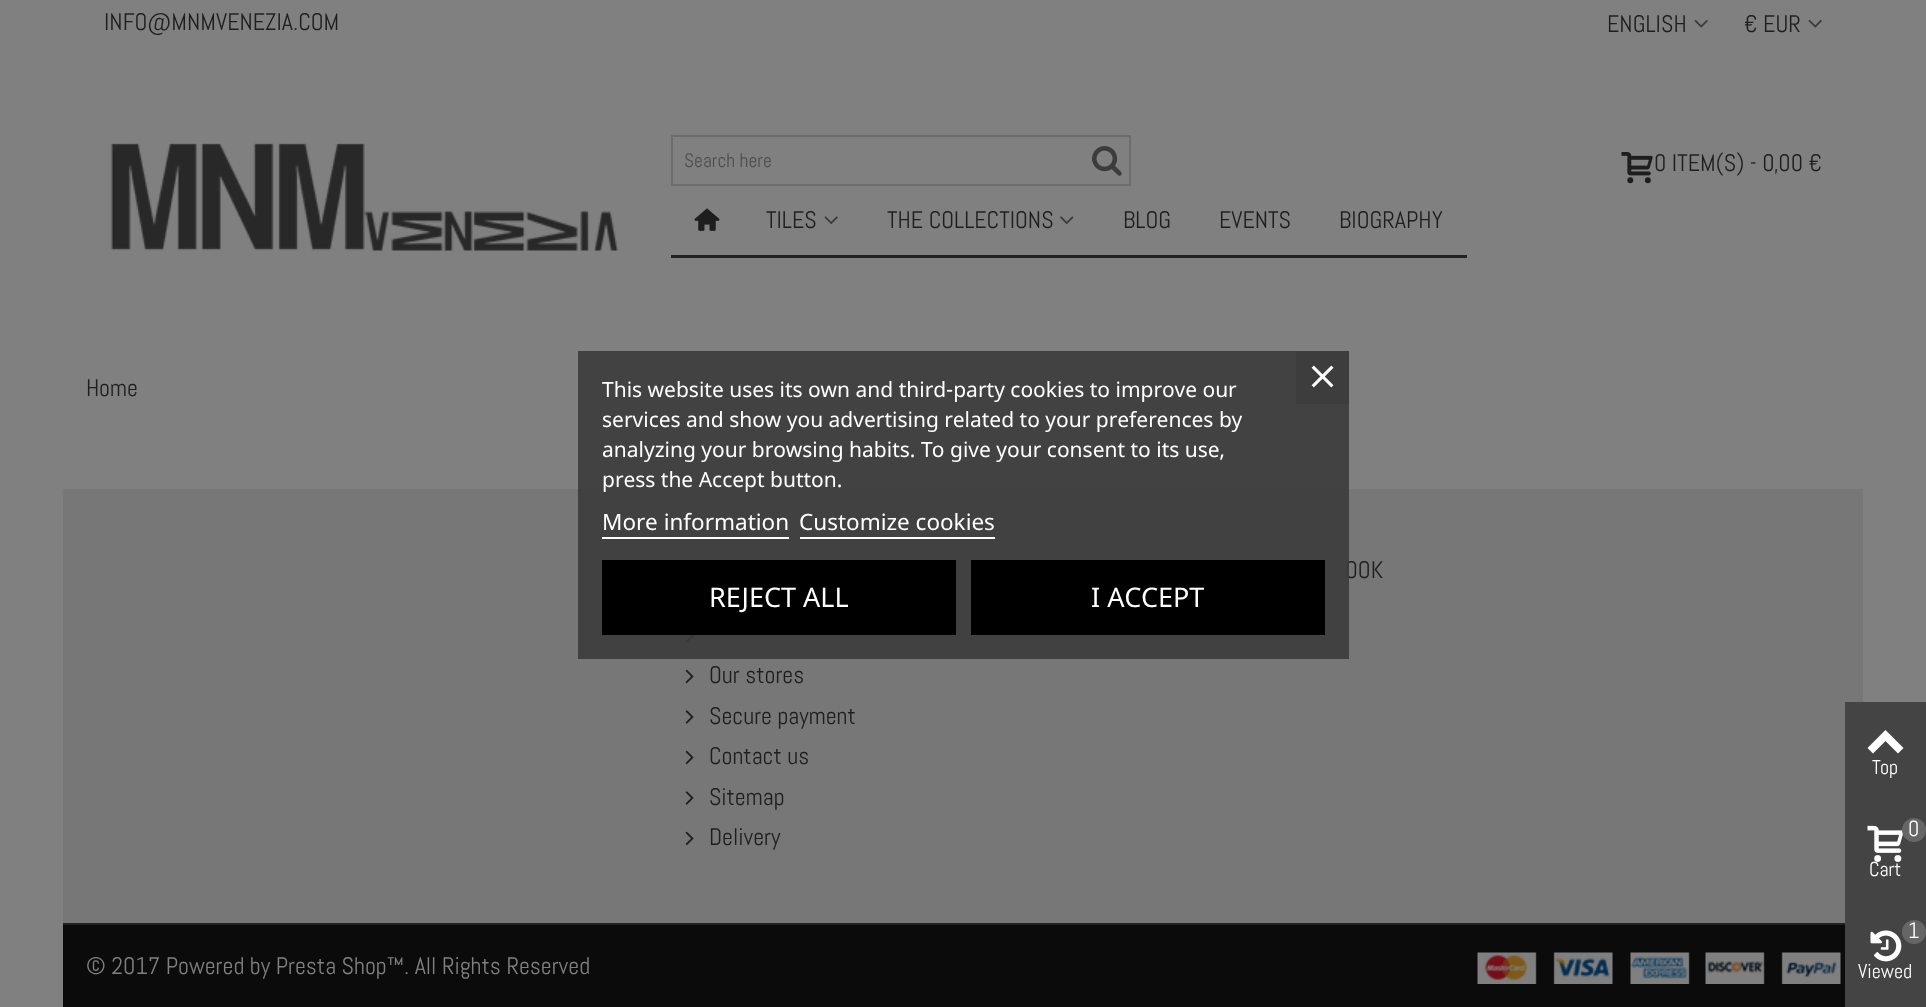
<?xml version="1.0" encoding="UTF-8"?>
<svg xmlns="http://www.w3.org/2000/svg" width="1926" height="1007">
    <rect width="100%" height="100%" fill="#808080"/>
    <text x="104" y="30" font-family="Abel" font-size="24" fill="#1E1E1E">INFO@MNMVENEZIA.COM</text>
    <text x="1607" y="32" font-family="Abel" font-size="24" fill="#1E1E1E">ENGLISH</text>
    <image x="1694" y="19" width="14" height="9" href="img_01.png"/>
    <text x="1744" y="32" font-family="Abel" font-size="24" fill="#1E1E1E">€ EUR</text>
    <image x="1808" y="19" width="14" height="9" href="img_01.png"/>
    <image x="110" y="143" width="509" height="108" href="img_02.png"/>
    <rect x="672" y="136" width="458" height="49" fill="none" stroke="#6D6D6D" stroke-width="2"/>
    <text x="684" y="167" font-family="Abel" font-size="19.5" fill="#4D4D4D">Search here</text>
    <image x="1092" y="146" width="30" height="30" href="img_03.png"/>
    <image x="1621" y="152" width="32" height="32" href="img_04.png"/>
    <text x="1654" y="171" font-family="Abel" font-size="24" fill="#1E1E1E">0 ITEM(S) - 0,00 €</text>
    <rect x="671" y="255" width="796" height="3" fill="#222222"/>
    <image x="694" y="208" width="26" height="23" href="img_05.png"/>
    <text x="766" y="228" font-family="Abel" font-size="24" fill="#1E1E1E">TILES</text>
    <image x="824" y="216" width="14" height="9" href="img_06.png"/>
    <text x="887" y="228" font-family="Abel" font-size="24" fill="#1E1E1E">THE COLLECTIONS</text>
    <image x="1060" y="216" width="14" height="9" href="img_07.png"/>
    <text x="1123" y="228" font-family="Abel" font-size="24" fill="#1E1E1E">BLOG</text>
    <text x="1219" y="228" font-family="Abel" font-size="24" fill="#1E1E1E">EVENTS</text>
    <text x="1339" y="228" font-family="Abel" font-size="24" fill="#1E1E1E">BIOGRAPHY</text>
    <text x="86" y="396" font-family="Abel" font-size="24" fill="#1E1E1E">Home</text>
    <rect x="63" y="489" width="1800" height="434" fill="#777777"/>
    <text x="1345" y="578" font-family="Abel" font-size="24" fill="#1E1E1E">OOK</text>
    <image x="685" y="635" width="9" height="8" href="img_09.png"/>
    <rect x="578" y="351" width="771" height="308" fill="#3B3B3B" fill-opacity="0.9"/>
    <text font-family="Noto Sans" font-size="21" fill="#FFFFFF">
        <tspan x="602" y="397">This website uses its own and third-party cookies to improve our</tspan>
        <tspan x="602" y="427">services and show you advertising related to your preferences by</tspan>
        <tspan x="602" y="457">analyzing your browsing habits. To give your consent to its use,</tspan>
        <tspan x="602" y="487">press the Accept button.</tspan>
    </text>
    <text x="602" y="530" font-family="Noto Sans" font-size="22.5" fill="#FFFFFF">More information</text>
    <rect x="602" y="537" width="187" height="2" fill="#FFFFFF"/>
    <text x="799" y="530" font-family="Noto Sans" font-size="22.5" fill="#FFFFFF">Customize cookies</text>
    <rect x="800" y="537" width="195" height="2" fill="#FFFFFF"/>
    <rect x="602" y="560" width="354" height="75" fill="#000000"/>
    <text x="709" y="607" font-family="Noto Sans" font-size="27" fill="#FFFFFF">REJECT ALL</text>
    <rect x="971" y="560" width="354" height="75" fill="#000000"/>
    <text x="1091" y="607" font-family="Noto Sans" font-size="27" fill="#FFFFFF">I ACCEPT</text>
    <rect x="1296" y="351" width="53" height="53" fill="#3D3D3D"/>
    <image x="1311" y="365" width="23" height="23" href="img_08.png"/>
    <image x="685" y="669" width="9" height="15" href="img_10.png"/>
    <text x="709" y="683" font-family="Abel" font-size="24" fill="#1E1E1E">Our stores</text>
    <image x="685" y="710" width="9" height="14" href="img_11.png"/>
    <text x="709" y="724" font-family="Abel" font-size="24" fill="#1E1E1E">Secure payment</text>
    <image x="685" y="750" width="9" height="15" href="img_10.png"/>
    <text x="709" y="764" font-family="Abel" font-size="24" fill="#1E1E1E">Contact us</text>
    <image x="685" y="791" width="9" height="14" href="img_11.png"/>
    <text x="709" y="805" font-family="Abel" font-size="24" fill="#1E1E1E">Sitemap</text>
    <image x="685" y="831" width="9" height="15" href="img_10.png"/>
    <text x="709" y="845" font-family="Abel" font-size="24" fill="#1E1E1E">Delivery</text>
    <rect x="63" y="925" width="1782" height="82" fill="#0B0B0B"/>
    <rect x="63" y="923" width="1782" height="2" fill="#222222"/>
    <text x="86" y="974" font-family="Abel" font-size="24" fill="#808080">© 2017 Powered by Presta Shop™. All Rights Reserved</text>
    <image x="1477" y="952" width="364" height="32" href="img_12.png"/>
    <rect x="1845" y="702" width="81" height="305" fill="#444444"/>
    <path d="M 1867.5 748 L 1885.5 730 L 1903.5 748 L 1898 753.5 L 1885.5 741 L 1873 753.5 Z" fill="#FFFFFF"/>
    <text x="1872" y="774" font-family="Abel" font-size="20" fill="#FFFFFF">Top</text>
    <image x="1867" y="825" width="36" height="37" href="img_13.png"/>
    <circle cx="1914" cy="830" r="12" fill="#666666"/>
    <text x="1908" y="836" font-family="Abel" font-size="22" fill="#FFFFFF">0</text>
    <text x="1869" y="876" font-family="Abel" font-size="20" fill="#FFFFFF">Cart</text>
    <image x="1870" y="930" width="32" height="32" href="img_14.png"/>
    <circle cx="1914" cy="932" r="12" fill="#666666"/>
    <text x="1908" y="938" font-family="Abel" font-size="22" fill="#FFFFFF">1</text>
    <text x="1858" y="978" font-family="Abel" font-size="20" fill="#FFFFFF">Viewed</text>
</svg>
